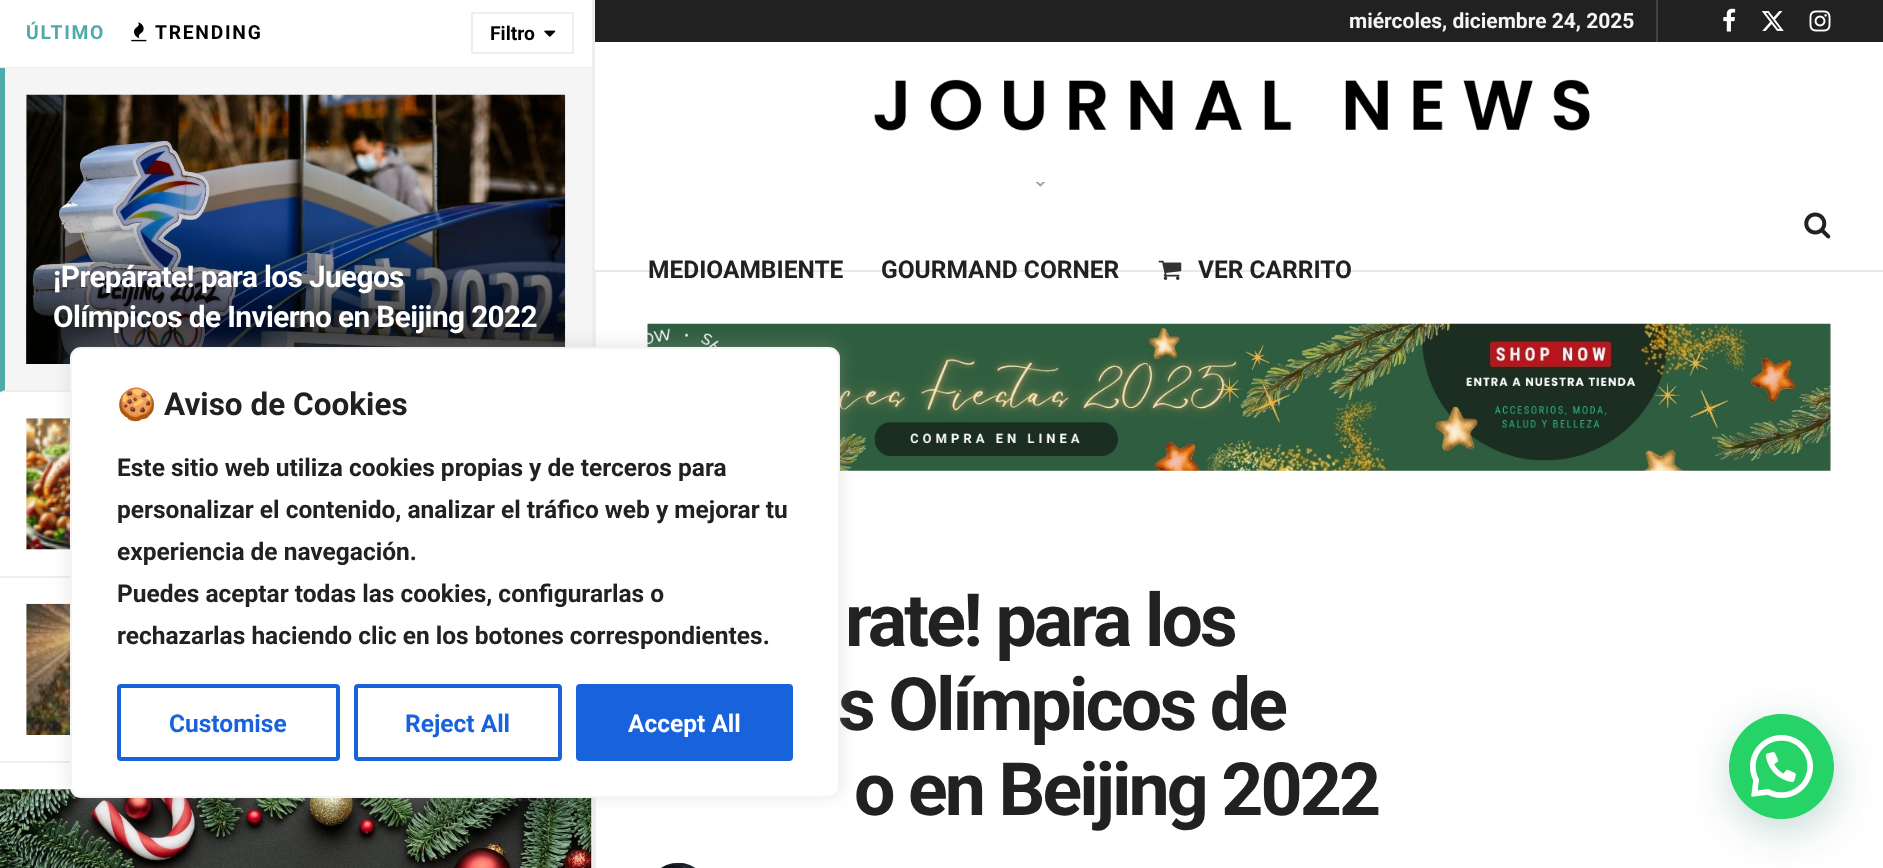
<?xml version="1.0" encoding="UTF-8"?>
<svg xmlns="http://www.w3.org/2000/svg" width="1883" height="868">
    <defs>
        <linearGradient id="g1" gradientUnits="userSpaceOnUse" x1="296" y1="222" x2="296" y2="364"><stop offset="0" stop-color="#000000" stop-opacity="0"/><stop offset="0.7" stop-color="#000000" stop-opacity="0.65"/></linearGradient>
        <filter id="blur1" x="-50%" y="-200%" width="200%" height="500%"><feGaussianBlur stdDeviation="9"/></filter>
        <filter id="blur2" x="-50%" y="-200%" width="200%" height="500%"><feGaussianBlur stdDeviation="21"/></filter>
    </defs>
    <rect width="100%" height="100%" fill="#FFFFFF"/>
    <rect x="592" y="0" width="4" height="868" fill="#EEEEEE"/>
    <rect x="0" y="67" width="592" height="1" fill="#EEEEEE"/>
    <text x="26" y="39" font-family="Roboto" font-size="19.25" font-weight="700" letter-spacing="1.75" fill="#50AAA9">ÚLTIMO</text>
    <image x="131" y="22" width="16" height="20" href="img_01.png"/>
    <text x="155" y="39" font-family="Roboto" font-size="19.25" font-weight="700" letter-spacing="1.75" fill="#000000">TRENDING</text>
    <rect x="472" y="13" width="101" height="40" fill="none" stroke="#EEEEEE" stroke-width="2"/>
    <text x="490" y="40" font-family="Roboto" font-size="19.25" font-weight="700" fill="#000000">Filtro</text>
    <image x="544" y="30" width="12" height="7" href="img_02.png"/>
    <rect x="0" y="68" width="592" height="324" fill="#F5F5F5"/>
    <path d="M 592 392 H 0 L 5 390 H 592 Z" fill="#EEEEEE"/>
    <path d="M 0 392 V 68 H 5 V 390 Z" fill="#50AAA9"/>
    <image x="26" y="94" width="540" height="270" href="img_03.png"/>
    <rect x="26" y="225" width="539" height="139" fill="url(#g1)"/>
    <text font-family="Roboto" font-size="29.75" font-weight="700" letter-spacing="-0.6" fill="#FFFFFF">
        <tspan x="53" y="287">¡Prepárate! para los Juegos</tspan>
        <tspan x="53" y="327">Olímpicos de Invierno en Beijing 2022</tspan>
    </text>
    <rect x="0" y="576" width="70" height="2" fill="#EEEEEE"/>
    <rect x="26" y="418" width="44" height="132" fill="#F7F7F7"/>
    <image x="26" y="418" width="44" height="132" href="img_04.png"/>
    <rect x="0" y="761" width="70" height="2" fill="#EEEEEE"/>
    <rect x="26" y="604" width="1" height="131" fill="#F7F7F7"/>
    <image x="26" y="603" width="44" height="132" href="img_05.png"/>
    <image x="0" y="789" width="592" height="79" href="img_06.png"/>
    <rect x="595" y="0" width="1288" height="42" fill="#212121"/>
    <rect x="1656" y="0" width="2" height="42" fill="#424242"/>
    <text x="1349" y="28" font-family="Roboto" font-size="21" font-weight="700" fill="#F5F5F5">miércoles, diciembre 24, 2025</text>
    <image x="1723" y="8" width="13" height="24" href="img_07.png"/>
    <image x="1761" y="11" width="23" height="20" href="img_08.png"/>
    <image x="1809" y="10" width="22" height="22" href="img_09.png"/>
    <image x="874" y="79" width="716" height="52" href="img_10.png"/>
    <rect x="595" y="42" width="1" height="228" fill="#FFFFFF"/>
    <rect x="595" y="270" width="1288" height="2" fill="#E8E8E8"/>
    <image x="1804" y="212" width="27" height="27" href="img_11.png"/>
    <image x="1035" y="182" width="10" height="5" href="img_12.png"/>
    <text x="648" y="278" font-family="Roboto" font-size="24.5" font-weight="700" fill="#212121">MEDIOAMBIENTE</text>
    <text x="881" y="278" font-family="Roboto" font-size="24.5" font-weight="700" fill="#212121">GOURMAND CORNER</text>
    <image x="1158" y="260" width="24" height="20" href="img_13.png"/>
    <text x="1198" y="278" font-family="Roboto" font-size="24.5" font-weight="700" fill="#212121">VER CARRITO</text>
    <image x="647" y="323" width="1184" height="148" href="img_14.png"/>
    <text x="845" y="646" font-family="Roboto" font-size="73.5" font-weight="700" letter-spacing="-2.9" fill="#212121">rate! para los</text>
    <text x="838" y="730" font-family="Roboto" font-size="73.5" font-weight="700" letter-spacing="-2.9" fill="#212121">s Olímpicos de</text>
    <text x="854" y="815" font-family="Roboto" font-size="73.5" font-weight="700" letter-spacing="-2.9" fill="#212121">o en Beijing 2022</text>
    <image x="661" y="862" width="35" height="6" href="img_15.png"/>
    <rect x="70" y="345" width="770" height="451" rx="11" fill="#ACABAB" fill-opacity="0.3" filter="url(#blur1)"/>
    <rect x="71" y="348" width="768" height="449" rx="10" fill="#FFFFFF" stroke="#F4F4F4" stroke-width="2"/>
    <text x="117" y="415" font-family="Noto Color Emoji" font-size="31.5" font-weight="700" fill="#212121">🍪</text>
    <text x="164" y="415" font-family="Roboto" font-size="31.5" font-weight="700" fill="#212121">Aviso de Cookies</text>
    <text font-family="Roboto" font-size="24.5" font-weight="700" fill="#212121">
        <tspan x="117" y="476">Este sitio web utiliza cookies propias y de terceros para</tspan>
        <tspan x="117" y="518">personalizar el contenido, analizar el tráfico web y mejorar tu</tspan>
        <tspan x="117" y="560">experiencia de navegación.</tspan>
        <tspan x="117" y="602">Puedes aceptar todas las cookies, configurarlas o</tspan>
        <tspan x="117" y="644">rechazarlas haciendo clic en los botones correspondientes.</tspan>
    </text>
    <rect x="119" y="686" width="219" height="73" rx="2" fill="none" stroke="#1863DC" stroke-width="4"/>
    <text x="169" y="732" font-family="Roboto" font-size="24.5" font-weight="700" fill="#1863DC">Customise</text>
    <rect x="356" y="686" width="204" height="73" rx="2" fill="none" stroke="#1863DC" stroke-width="4"/>
    <text x="405" y="732" font-family="Roboto" font-size="24.5" font-weight="700" fill="#1863DC">Reject All</text>
    <rect x="578" y="686" width="213" height="73" rx="2" fill="#1863DC" stroke="#1863DC" stroke-width="4"/>
    <text x="628" y="732" font-family="Roboto" font-size="24.5" font-weight="700" fill="#FFFFFF">Accept All</text>
    <rect x="1731" y="725" width="105" height="105" rx="52.5" fill="#075E54" fill-opacity="0.24" filter="url(#blur2)"/>
    <circle cx="1781.5" cy="766.5" r="52.5" fill="#25D366"/>
    <image x="1750" y="735" width="63" height="63" href="img_16.png"/>
</svg>
